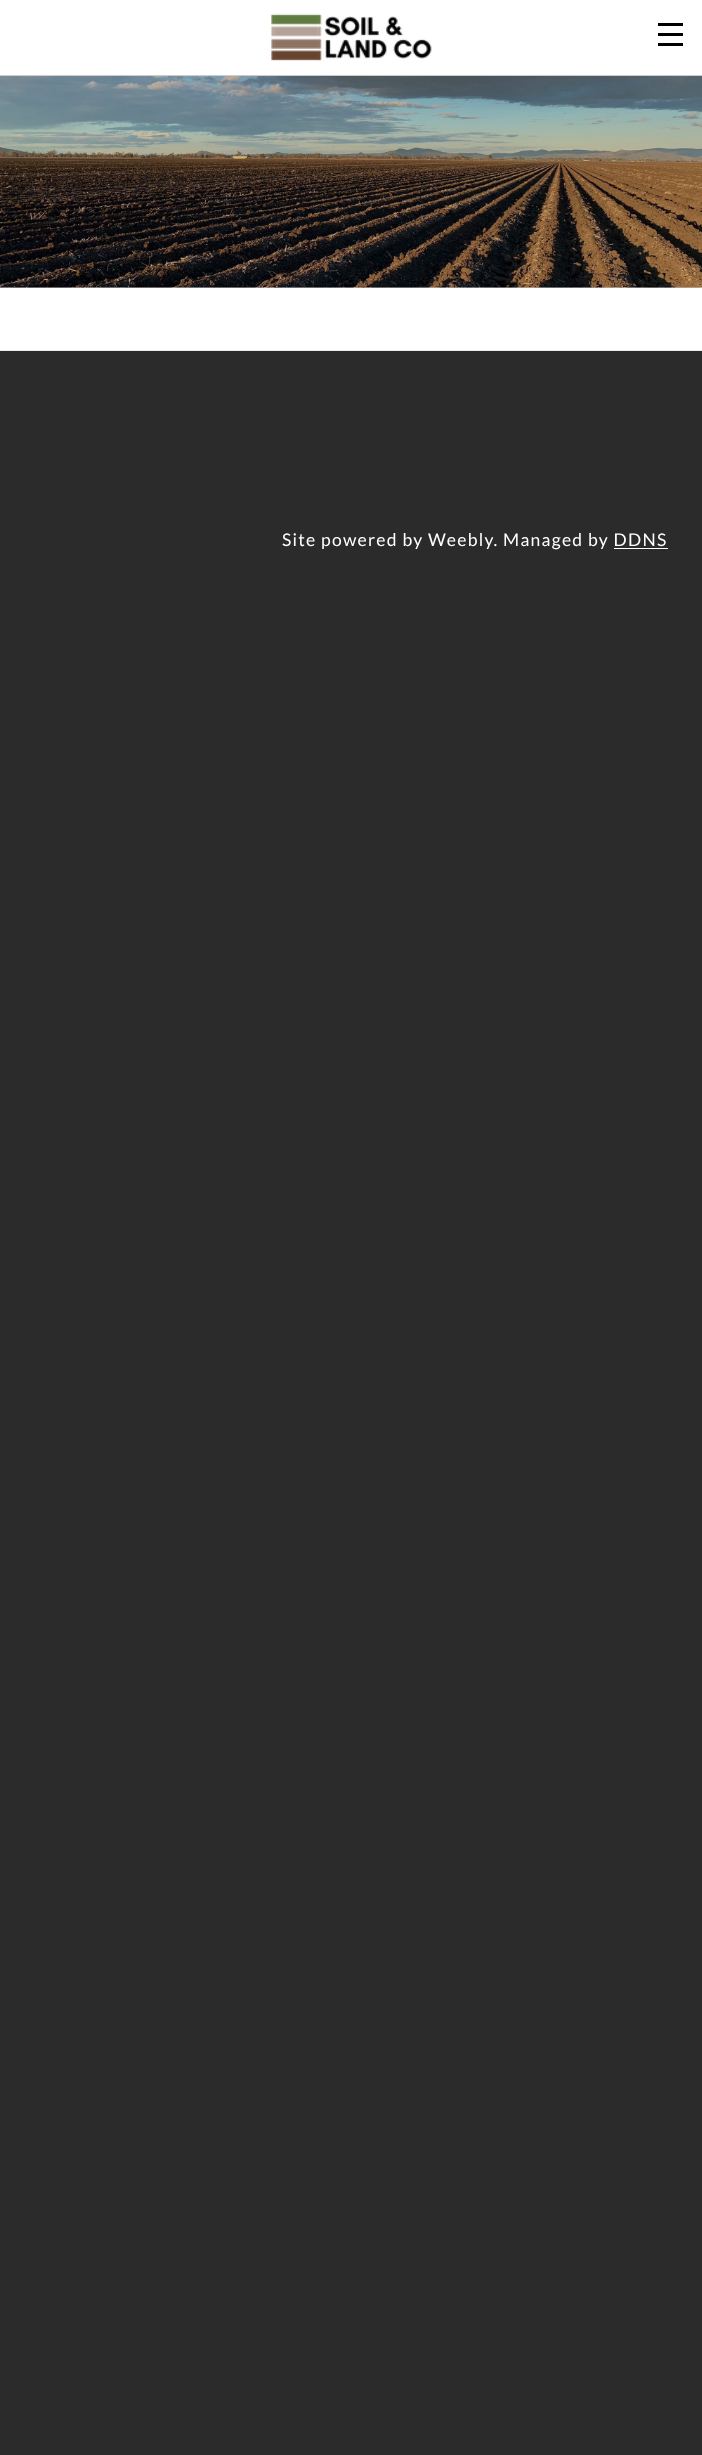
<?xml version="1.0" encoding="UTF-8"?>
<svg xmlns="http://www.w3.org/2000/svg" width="702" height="2455">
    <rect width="100%" height="100%" fill="#2B2B2B"/>
    <rect x="0" y="288" width="702" height="62" fill="#FFFFFF"/>
    <rect x="0" y="287" width="702" height="1" fill="#CCCCCC"/>
    <rect x="0" y="0" width="702" height="75" fill="#FFFFFF"/>
    <rect x="0" y="75" width="702" height="1" fill="#CCCCCC"/>
    <image x="271" y="13" width="161" height="48" href="img_01.png"/>
    <rect x="658" y="33" width="25" height="3" fill="#000000"/>
    <rect x="658" y="23" width="25" height="3" fill="#000000"/>
    <rect x="658" y="43" width="25" height="3" fill="#000000"/>
    <image x="0" y="76" width="702" height="212" href="img_02.png"/>
    <rect x="0" y="350" width="702" height="1" fill="#EBEBEB"/>
    <text x="282" y="546" font-family="Lato" font-size="17.5" letter-spacing="1.25" fill="#FFFFFF">Site powered by Weebly. Managed by DDNS</text>
    <rect x="614" y="548" width="54" height="1" fill="#FFFFFF"/>
</svg>
